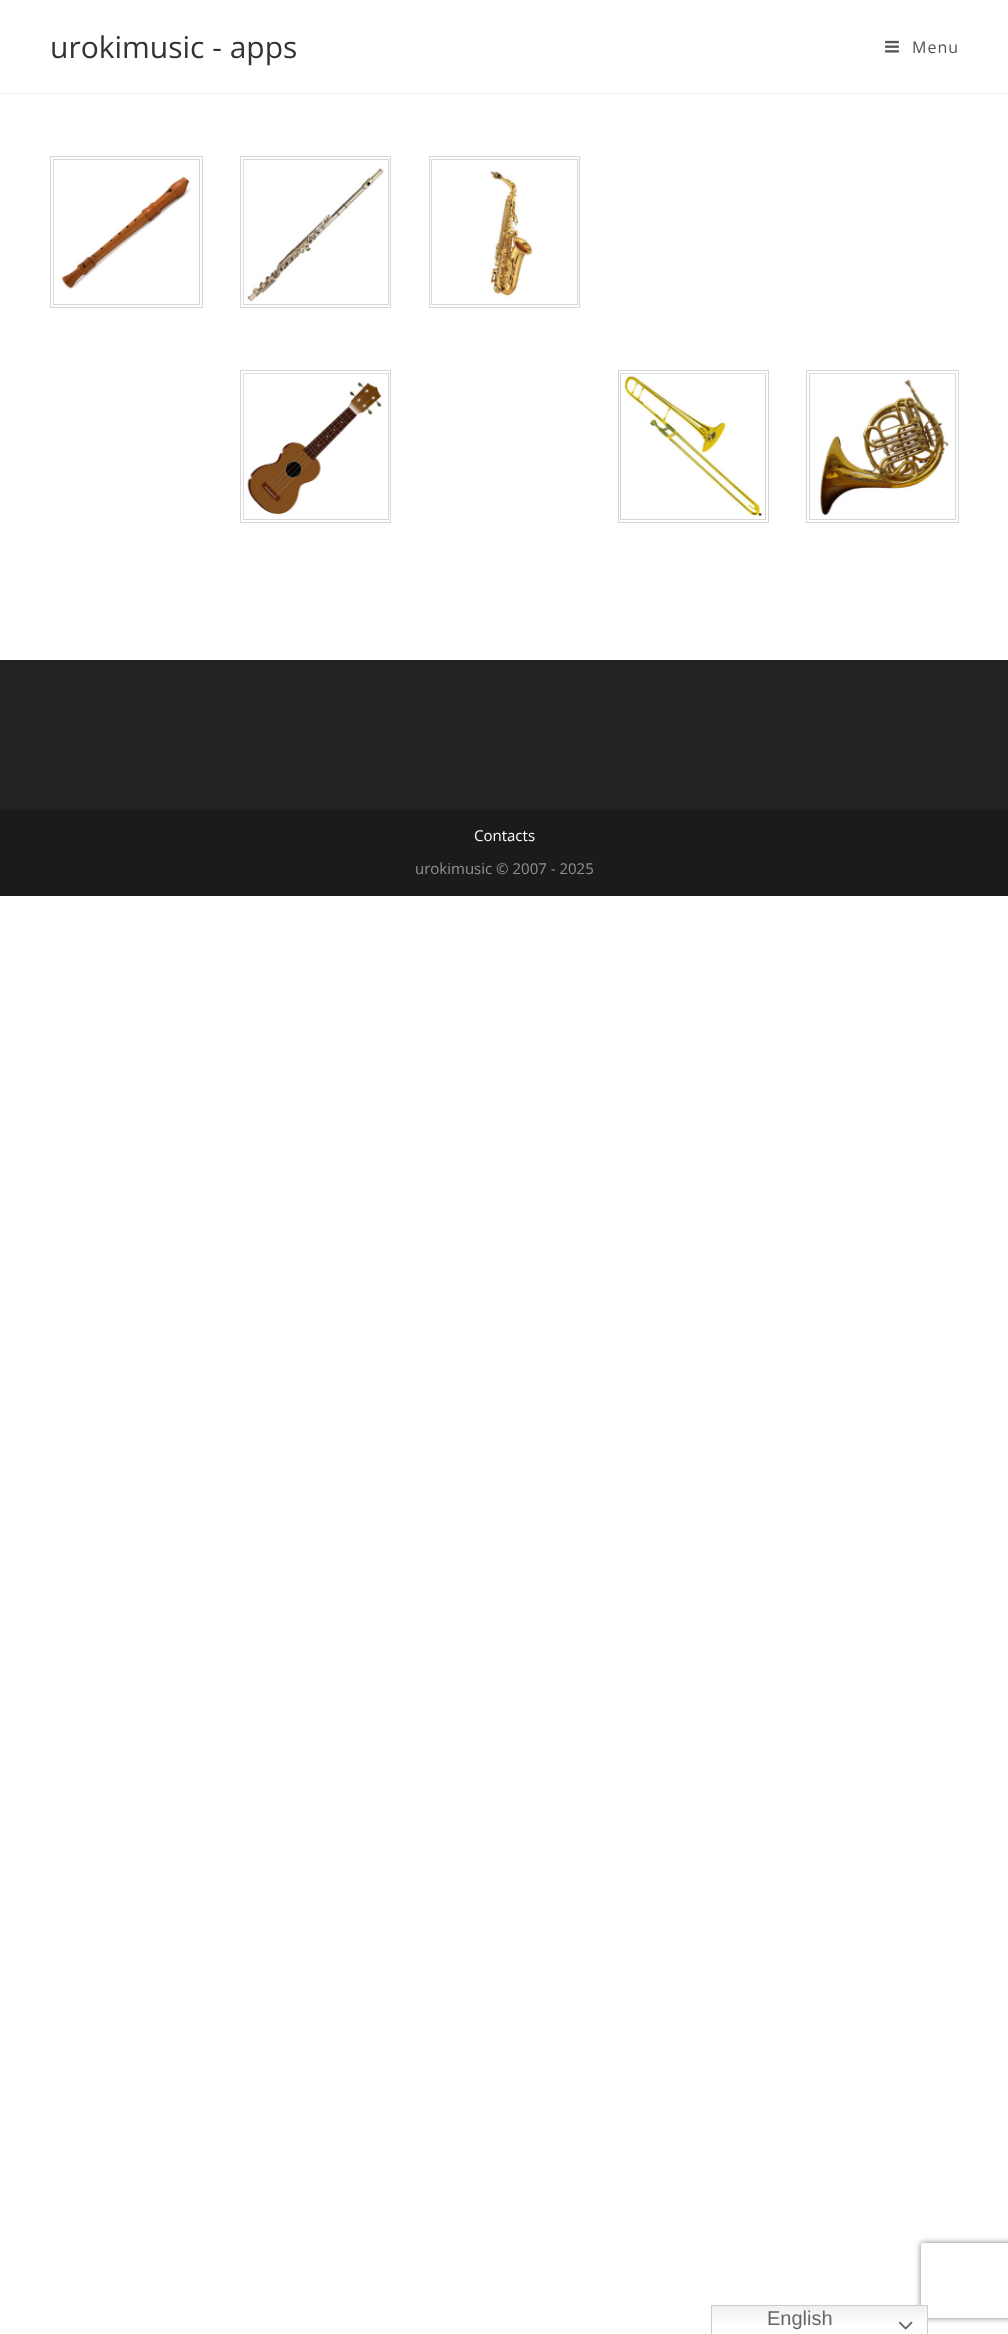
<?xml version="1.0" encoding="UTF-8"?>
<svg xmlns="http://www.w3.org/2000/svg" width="1008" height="2334">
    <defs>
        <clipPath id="clip1"><path d="M 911 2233 H 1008 V 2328 H 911 Z M 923.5 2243 H 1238.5 C 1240 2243 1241 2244 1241 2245.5 V 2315.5 C 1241 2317 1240 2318 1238.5 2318 H 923.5 C 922 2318 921 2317 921 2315.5 V 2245.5 C 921 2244 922 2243 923.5 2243 Z" clip-rule="evenodd"/></clipPath>
        <filter id="blur1" x="-50%" y="-200%" width="200%" height="500%"><feGaussianBlur stdDeviation="3"/></filter>
        <linearGradient id="g1" gradientUnits="userSpaceOnUse" x1="819" y1="2305" x2="819" y2="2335"><stop offset="0" stop-color="#EFEFEF"/><stop offset="0.7" stop-color="#FFFFFF"/></linearGradient>
    </defs>
    <rect width="100%" height="100%" fill="#FFFFFF"/>
    <rect x="0" y="93" width="1008" height="1" fill="#F1F1F1"/>
    <text x="50" y="58" font-family="Open Sans" font-size="30" fill="#333333">urokimusic - apps</text>
    <image x="885" y="40" width="14" height="13" href="img_01.png"/>
    <text x="912" y="53" font-family="Open Sans" font-size="16" letter-spacing="1" fill="#555555">Menu</text>
    <rect x="50.5" y="156.5" width="152" height="151" fill="none" stroke="#D6D6D6"/>
    <rect x="53.5" y="159.5" width="146" height="145" fill="none" stroke="#D6D6D6"/>
    <image x="53" y="160" width="139" height="144" href="img_02.png"/>
    <rect x="240.5" y="156.5" width="150" height="151" fill="none" stroke="#D6D6D6"/>
    <rect x="243.5" y="159.5" width="145" height="145" fill="none" stroke="#D6D6D6"/>
    <image x="243" y="160" width="141" height="144" href="img_03.png"/>
    <rect x="429.5" y="156.5" width="150" height="151" fill="none" stroke="#D6D6D6"/>
    <rect x="431.5" y="159.5" width="146" height="145" fill="none" stroke="#D6D6D6"/>
    <image x="490" y="170" width="43" height="128" href="img_04.png"/>
    <rect x="240.5" y="370.5" width="150" height="152" fill="none" stroke="#D6D6D6"/>
    <rect x="243.5" y="373.5" width="145" height="146" fill="none" stroke="#D6D6D6"/>
    <image x="243" y="373" width="145" height="146" href="img_05.png"/>
    <rect x="618.5" y="370.5" width="150" height="152" fill="none" stroke="#D6D6D6"/>
    <rect x="620.5" y="373.5" width="145" height="146" fill="none" stroke="#D6D6D6"/>
    <image x="621" y="373" width="144" height="144" href="img_06.png"/>
    <rect x="806.5" y="370.5" width="152" height="152" fill="none" stroke="#D6D6D6"/>
    <rect x="809.5" y="373.5" width="146" height="146" fill="none" stroke="#D6D6D6"/>
    <image x="810" y="373" width="145" height="144" href="img_07.png"/>
    <rect x="0" y="660" width="1008" height="150" fill="#222222"/>
    <rect x="0" y="810" width="1008" height="86" fill="#1B1B1B"/>
    <text x="474" y="841" font-family="Open Sans" font-size="15" fill="#FFFFFF">Contacts</text>
    <text x="415" y="874" font-family="Open Sans" font-size="15" fill="#929292">urokimusic © 2007 - 2025</text>
    <g clip-path="url(#clip1)">
        <rect x="921" y="2243" width="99" height="75" rx="2.5" fill="#808080" filter="url(#blur1)"/>
    </g>
    <rect x="712" y="2306" width="215" height="17" fill="url(#g1)"/>
    <rect x="711.5" y="2305.5" width="216" height="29" fill="none" stroke="#CCCCCC"/>
    <text x="767" y="2325" font-family="Liberation Sans" font-size="20" fill="#666666">English</text>
    <image x="899" y="2321" width="14" height="9" href="img_08.png"/>
</svg>
